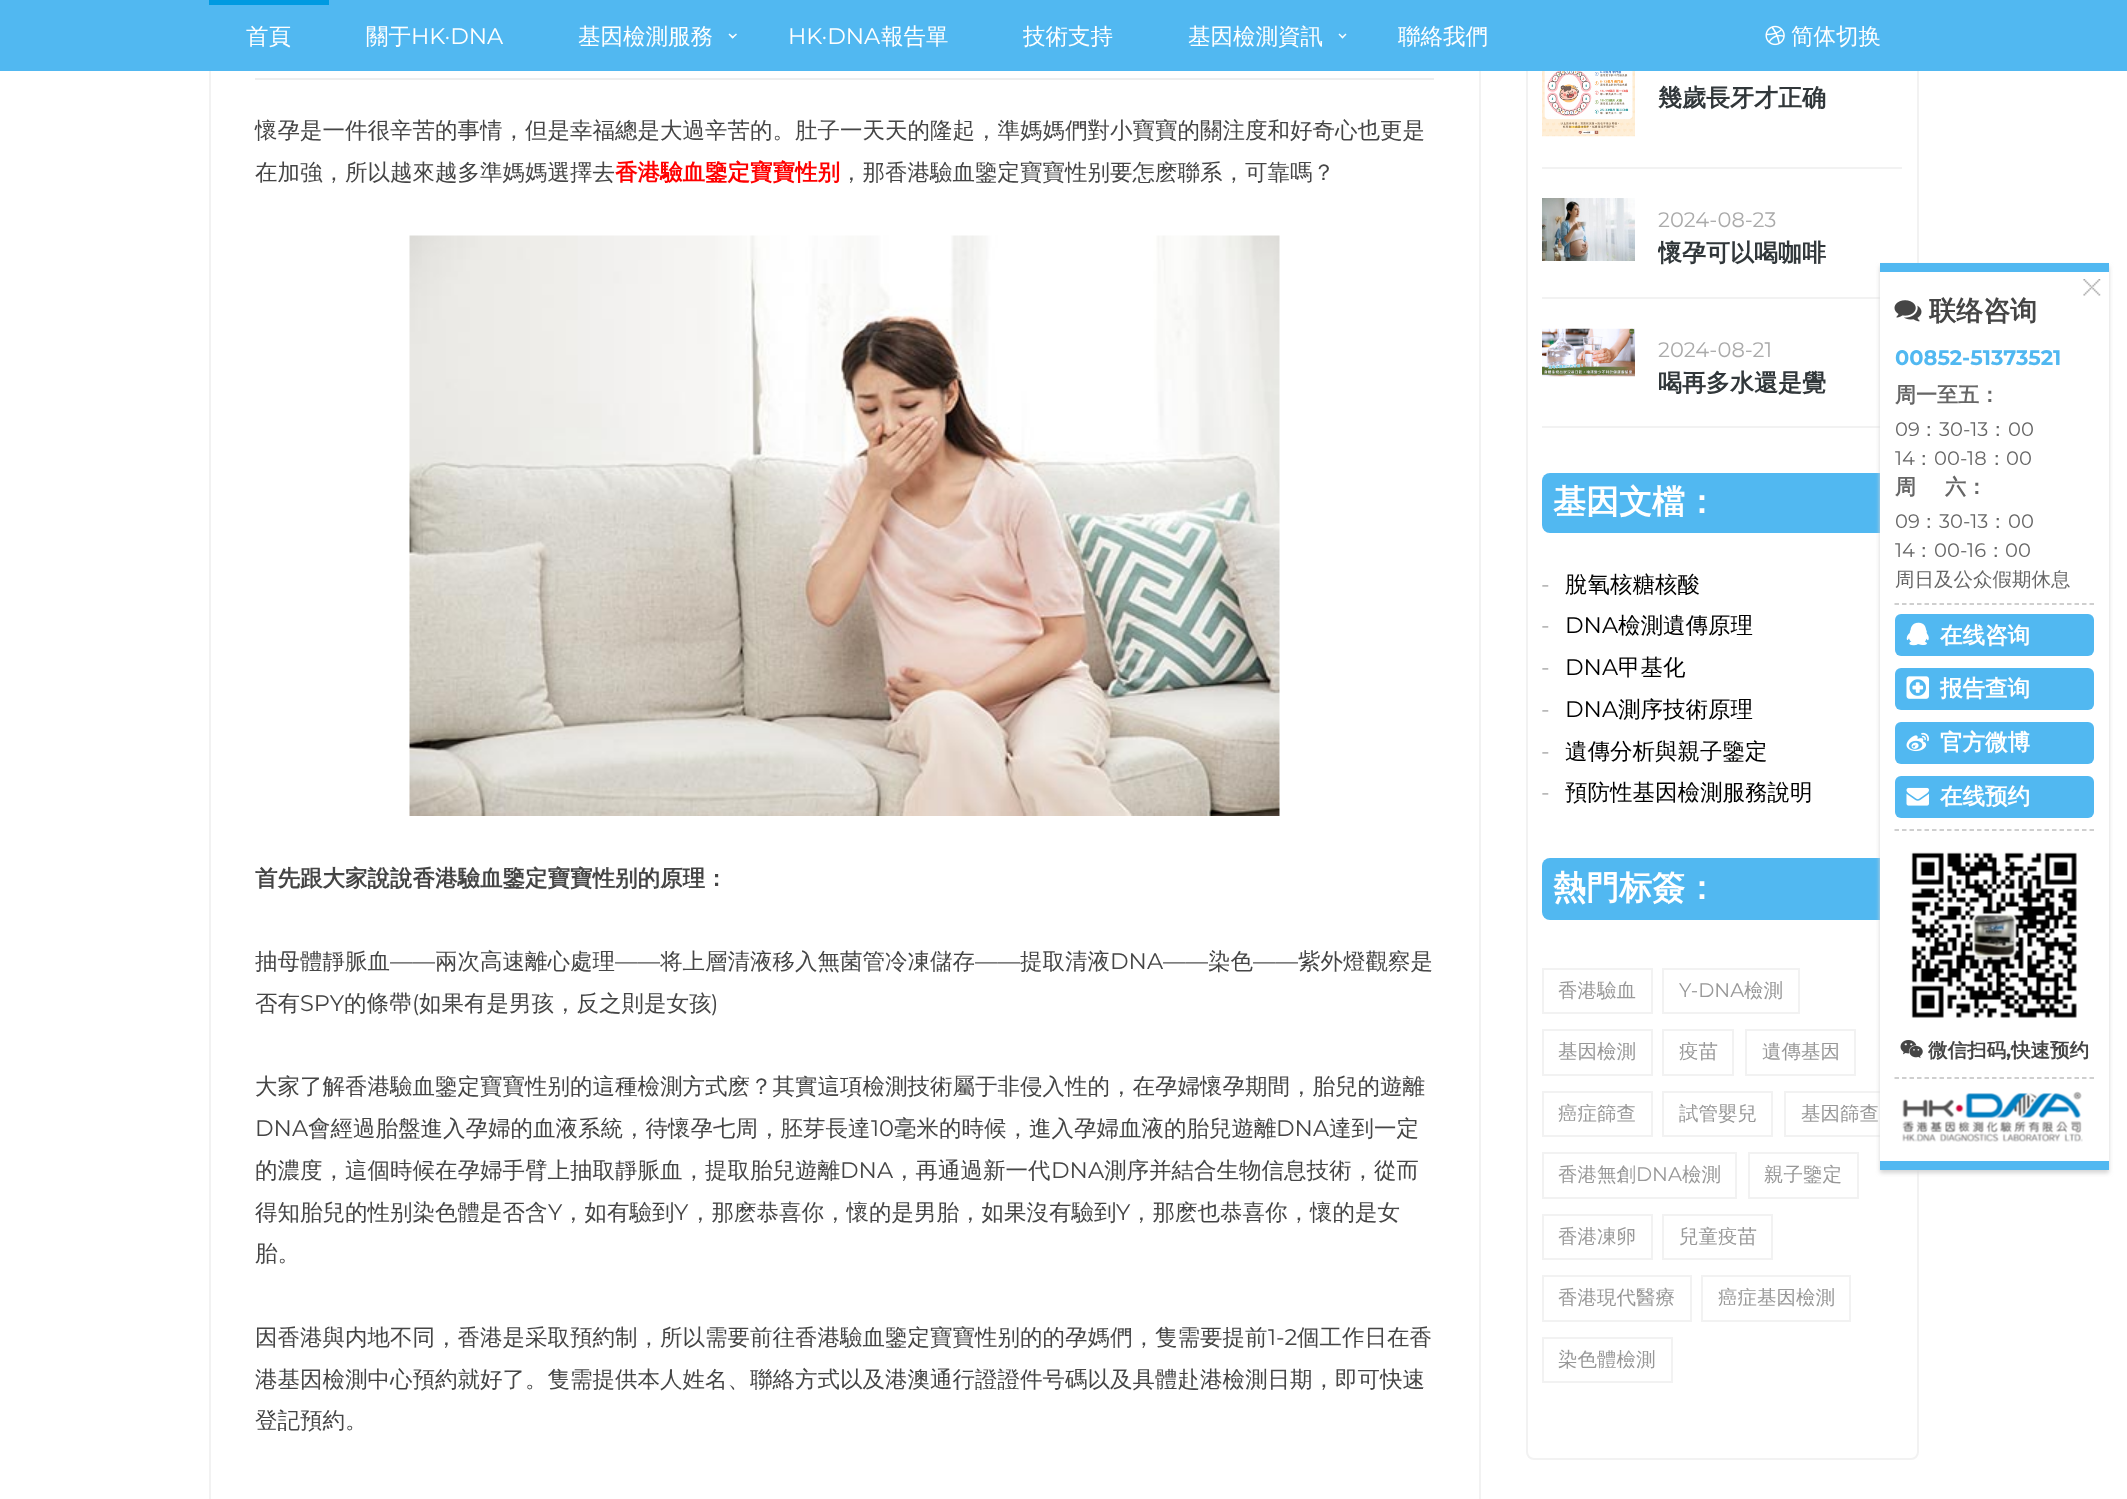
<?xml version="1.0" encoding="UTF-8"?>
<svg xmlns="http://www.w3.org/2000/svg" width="2127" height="1499">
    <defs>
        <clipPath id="clip1"><rect x="1658" y="198" width="244" height="69"/></clipPath>
        <filter id="blur1" x="-50%" y="-200%" width="200%" height="500%"><feGaussianBlur stdDeviation="2"/></filter>
    </defs>
    <rect width="100%" height="100%" fill="#FFFFFF"/>
    <rect x="1527" y="-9" width="391" height="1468" rx="7" fill="none" stroke="#F2F2F2" stroke-width="2"/>
    <rect x="0" y="0" width="2127" height="71" fill="#51B8F1"/>
    <rect x="209" y="0" width="120" height="5" fill="#009AE1"/>
    <text x="246" y="44" font-family="WenQuanYi Zen Hei" font-size="22.5" font-weight="500" fill="#FFFFFF">首頁</text>
    <text x="366" y="44" font-family="WenQuanYi Zen Hei" font-size="22.5" font-weight="500" fill="#FFFFFF">關于</text>
    <text x="411" y="44" font-family="Montserrat" font-size="22.5" fill="#FFFFFF">HK·DNA</text>
    <text x="578" y="44" font-family="WenQuanYi Zen Hei" font-size="22.5" font-weight="500" fill="#FFFFFF">基因檢測服務</text>
    <path d="M 736 33.5 L 737 34.5 L 732.5 38.5 L 731.5 37.5 Z" fill="#FFFFFF"/>
    <path d="M 729.5 33.5 L 734 37.5 L 732.5 38.5 L 728.5 34.5 Z" fill="#FFFFFF"/>
    <text x="788" y="44" font-family="Montserrat" font-size="22.5" fill="#FFFFFF">HK·DNA</text>
    <text x="881" y="44" font-family="WenQuanYi Zen Hei" font-size="22.5" font-weight="500" fill="#FFFFFF">報告單</text>
    <text x="1023" y="44" font-family="WenQuanYi Zen Hei" font-size="22.5" font-weight="500" fill="#FFFFFF">技術支持</text>
    <text x="1188" y="44" font-family="WenQuanYi Zen Hei" font-size="22.5" font-weight="500" fill="#FFFFFF">基因檢測資訊</text>
    <path d="M 1345.5 33.5 L 1346.5 34.5 L 1342.5 38.5 L 1341.5 37.5 Z" fill="#FFFFFF"/>
    <path d="M 1339.5 33.5 L 1343.5 37.5 L 1342.5 38.5 L 1338.5 34.5 Z" fill="#FFFFFF"/>
    <text x="1398" y="44" font-family="WenQuanYi Zen Hei" font-size="22.5" font-weight="500" fill="#FFFFFF">聯絡我們</text>
    <image x="1765" y="25" width="20" height="21" href="img_01.png"/>
    <text x="1791" y="44" font-family="WenQuanYi Zen Hei" font-size="22.5" font-weight="500" fill="#FFFFFF">简体切换</text>
    <rect x="1479" y="71" width="2" height="1428" fill="#F2F2F2"/>
    <rect x="209" y="71" width="2" height="1428" fill="#F2F2F2"/>
    <rect x="255" y="78" width="1179" height="2" fill="#EEEEEE"/>
    <text font-family="WenQuanYi Zen Hei" font-size="22.5" font-weight="500" fill="#454545">
        <tspan x="255" y="138">懷孕是一件很辛苦的事情，但是幸福總是大過辛苦的。肚子一天天的隆起，準媽媽們對小寶寶的關注度和好奇心也更是</tspan>
        <tspan x="255" y="180">在加強，所以越來越多準媽媽選擇去</tspan>
    </text>
    <text x="615" y="180" font-family="WenQuanYi Zen Hei" font-size="22.5" font-weight="700" fill="#FF0000">香港驗血鑒定寶寶性别</text>
    <text x="840" y="180" font-family="WenQuanYi Zen Hei" font-size="22.5" font-weight="500" fill="#454545">，那香港驗血鑒定寶寶性别要怎麽聯系，可靠嗎？</text>
    <image x="409" y="235" width="871" height="581" href="img_02.png"/>
    <text x="255" y="886" font-family="WenQuanYi Zen Hei" font-size="22.5" font-weight="700" fill="#454545">首先跟大家說說香港驗血鑒定寶寶性别的原理：</text>
    <text x="255" y="969" font-family="WenQuanYi Zen Hei" font-size="22.5" font-weight="500" fill="#454545">抽母體靜脈血</text>
    <text x="390" y="969" font-family="Montserrat" font-size="22.5" fill="#454545">——</text>
    <text x="435" y="969" font-family="WenQuanYi Zen Hei" font-size="22.5" font-weight="500" fill="#454545">兩次高速離心處理</text>
    <text x="615" y="969" font-family="Montserrat" font-size="22.5" fill="#454545">——</text>
    <text x="660" y="969" font-family="WenQuanYi Zen Hei" font-size="22.5" font-weight="500" fill="#454545">将上層清液移入無菌管冷凍儲存</text>
    <text x="975" y="969" font-family="Montserrat" font-size="22.5" fill="#454545">——</text>
    <text x="1020" y="969" font-family="WenQuanYi Zen Hei" font-size="22.5" font-weight="500" fill="#454545">提取清液</text>
    <text x="1110" y="969" font-family="Montserrat" font-size="22.5" fill="#454545">DNA——</text>
    <text x="1208" y="969" font-family="WenQuanYi Zen Hei" font-size="22.5" font-weight="500" fill="#454545">染色</text>
    <text x="1253" y="969" font-family="Montserrat" font-size="22.5" fill="#454545">——</text>
    <text x="1298" y="969" font-family="WenQuanYi Zen Hei" font-size="22.5" font-weight="500" fill="#454545">紫外燈觀察是</text>
    <text x="255" y="1011" font-family="WenQuanYi Zen Hei" font-size="22.5" font-weight="500" fill="#454545">否有</text>
    <text x="300" y="1011" font-family="Montserrat" font-size="22.5" fill="#454545">SPY</text>
    <text x="344" y="1011" font-family="WenQuanYi Zen Hei" font-size="22.5" font-weight="500" fill="#454545">的條帶</text>
    <text x="412" y="1011" font-family="Montserrat" font-size="22.5" fill="#454545">(</text>
    <text x="419" y="1011" font-family="WenQuanYi Zen Hei" font-size="22.5" font-weight="500" fill="#454545">如果有是男孩，反之則是女孩</text>
    <text x="711" y="1011" font-family="Montserrat" font-size="22.5" fill="#454545">)</text>
    <text x="255" y="1094" font-family="WenQuanYi Zen Hei" font-size="22.5" font-weight="500" fill="#454545">大家了解香港驗血鑒定寶寶性别的這種檢測方式麽？其實這項檢測技術屬于非侵入性的，在孕婦懷孕期間，胎兒的遊離</text>
    <text x="255" y="1136" font-family="Montserrat" font-size="22.5" fill="#454545">DNA</text>
    <text x="308" y="1136" font-family="WenQuanYi Zen Hei" font-size="22.5" font-weight="500" fill="#454545">會經過胎盤進入孕婦的血液系統，待懷孕七周，胚芽長達</text>
    <text x="871" y="1136" font-family="Montserrat" font-size="22.5" fill="#454545">10</text>
    <text x="894" y="1136" font-family="WenQuanYi Zen Hei" font-size="22.5" font-weight="500" fill="#454545">毫米的時候，進入孕婦血液的胎兒遊離</text>
    <text x="1276" y="1136" font-family="Montserrat" font-size="22.5" fill="#454545">DNA</text>
    <text x="1329" y="1136" font-family="WenQuanYi Zen Hei" font-size="22.5" font-weight="500" fill="#454545">達到一定</text>
    <text x="255" y="1178" font-family="WenQuanYi Zen Hei" font-size="22.5" font-weight="500" fill="#454545">的濃度，這個時候在孕婦手臂上抽取靜脈血，提取胎兒遊離</text>
    <text x="840" y="1178" font-family="Montserrat" font-size="22.5" fill="#454545">DNA</text>
    <text x="893" y="1178" font-family="WenQuanYi Zen Hei" font-size="22.5" font-weight="500" fill="#454545">，再通過新一代</text>
    <text x="1051" y="1178" font-family="Montserrat" font-size="22.5" fill="#454545">DNA</text>
    <text x="1104" y="1178" font-family="WenQuanYi Zen Hei" font-size="22.5" font-weight="500" fill="#454545">測序并結合生物信息技術，從而</text>
    <text x="255" y="1220" font-family="WenQuanYi Zen Hei" font-size="22.5" font-weight="500" fill="#454545">得知胎兒的性别染色體是否含</text>
    <text x="548" y="1220" font-family="Montserrat" font-size="22.5" fill="#454545">Y</text>
    <text x="562" y="1220" font-family="WenQuanYi Zen Hei" font-size="22.5" font-weight="500" fill="#454545">，如有驗到</text>
    <text x="674" y="1220" font-family="Montserrat" font-size="22.5" fill="#454545">Y</text>
    <text x="689" y="1220" font-family="WenQuanYi Zen Hei" font-size="22.5" font-weight="500" fill="#454545">，那麽恭喜你，懷的是男胎，如果沒有驗到</text>
    <text x="1116" y="1220" font-family="Montserrat" font-size="22.5" fill="#454545">Y</text>
    <text x="1130" y="1220" font-family="WenQuanYi Zen Hei" font-size="22.5" font-weight="500" fill="#454545">，那麽也恭喜你，懷的是女</text>
    <text x="255" y="1261" font-family="WenQuanYi Zen Hei" font-size="22.5" font-weight="500" fill="#454545">胎。</text>
    <text x="255" y="1345" font-family="WenQuanYi Zen Hei" font-size="22.5" font-weight="500" fill="#454545">因香港與内地不同，香港是采取預約制，所以需要前往香港驗血鑒定寶寶性别的的孕媽們，隻需要提前</text>
    <text x="1268" y="1345" font-family="Montserrat" font-size="22.5" fill="#454545">1-2</text>
    <text x="1297" y="1345" font-family="WenQuanYi Zen Hei" font-size="22.5" font-weight="500" fill="#454545">個工作日在香</text>
    <text font-family="WenQuanYi Zen Hei" font-size="22.5" font-weight="500" fill="#454545">
        <tspan x="255" y="1387">港基因檢測中心預約就好了。隻需提供本人姓名、聯絡方式以及港澳通行證證件号碼以及具體赴港檢測日期，即可快速</tspan>
        <tspan x="255" y="1428">登記預約。</tspan>
    </text>
    <rect x="1542" y="167" width="360" height="2" fill="#F2F2F2"/>
    <image x="1542" y="71" width="93" height="66" href="img_03.png"/>
    <text x="1658" y="106" font-family="WenQuanYi Zen Hei" font-size="24" font-weight="700" fill="#31373A">幾歲長牙才正确</text>
    <rect x="1542" y="297" width="338" height="2" fill="#F2F2F2"/>
    <image x="1542" y="198" width="93" height="63" href="img_04.png"/>
    <text x="1658" y="227" font-family="Montserrat" font-size="21" fill="#AAAAAA">2024-08-23</text>
    <g clip-path="url(#clip1)">
        <text x="1658" y="261" font-family="WenQuanYi Zen Hei" font-size="24" font-weight="700" fill="#31373A">懷孕可以喝咖啡</text>
    </g>
    <rect x="1542" y="426" width="338" height="2" fill="#F2F2F2"/>
    <image x="1542" y="328" width="93" height="49" href="img_05.png"/>
    <text x="1658" y="357" font-family="Montserrat" font-size="21" fill="#AAAAAA">2024-08-21</text>
    <text x="1658" y="391" font-family="WenQuanYi Zen Hei" font-size="24" font-weight="700" fill="#31373A">喝再多水還是覺</text>
    <rect x="1542" y="473" width="360" height="60" rx="8" fill="#51B8F1"/>
    <text x="1553" y="513" font-family="WenQuanYi Zen Hei" font-size="33" font-weight="700" fill="#FFFFFF">基因文檔：</text>
    <text x="1541" y="592" font-family="Montserrat" font-size="22.5" fill="#AAAAAA">-</text>
    <text x="1565" y="592" font-family="WenQuanYi Zen Hei" font-size="22.5" font-weight="500" fill="#000000">脫氧核糖核酸</text>
    <text x="1541" y="633" font-family="Montserrat" font-size="22.5" fill="#AAAAAA">-</text>
    <text x="1565" y="633" font-family="Montserrat" font-size="22.5" fill="#000000">DNA</text>
    <text x="1618" y="633" font-family="WenQuanYi Zen Hei" font-size="22.5" font-weight="500" fill="#000000">檢測遺傳原理</text>
    <text x="1541" y="675" font-family="Montserrat" font-size="22.5" fill="#AAAAAA">-</text>
    <text x="1565" y="675" font-family="Montserrat" font-size="22.5" fill="#000000">DNA</text>
    <text x="1618" y="675" font-family="WenQuanYi Zen Hei" font-size="22.5" font-weight="500" fill="#000000">甲基化</text>
    <text x="1541" y="717" font-family="Montserrat" font-size="22.5" fill="#AAAAAA">-</text>
    <text x="1565" y="717" font-family="Montserrat" font-size="22.5" fill="#000000">DNA</text>
    <text x="1618" y="717" font-family="WenQuanYi Zen Hei" font-size="22.5" font-weight="500" fill="#000000">測序技術原理</text>
    <text x="1541" y="759" font-family="Montserrat" font-size="22.5" fill="#AAAAAA">-</text>
    <text x="1565" y="759" font-family="WenQuanYi Zen Hei" font-size="22.5" font-weight="500" fill="#000000">遺傳分析與親子鑒定</text>
    <text x="1541" y="800" font-family="Montserrat" font-size="22.5" fill="#AAAAAA">-</text>
    <text x="1565" y="800" font-family="WenQuanYi Zen Hei" font-size="22.5" font-weight="500" fill="#000000">預防性基因檢測服務說明</text>
    <rect x="1542" y="858" width="360" height="62" rx="8" fill="#51B8F1"/>
    <text x="1553" y="899" font-family="WenQuanYi Zen Hei" font-size="33" font-weight="700" fill="#FFFFFF">熱門标簽：</text>
    <rect x="1543" y="969" width="109" height="44" fill="none" stroke="#F2F2F2" stroke-width="2"/>
    <text x="1558" y="997" font-family="WenQuanYi Zen Hei" font-size="19.5" font-weight="500" fill="#989898">香港驗血</text>
    <rect x="1663" y="969" width="136" height="44" fill="none" stroke="#F2F2F2" stroke-width="2"/>
    <text x="1679" y="997" font-family="Montserrat" font-size="19.5" fill="#989898">Y-DNA</text>
    <text x="1744" y="997" font-family="WenQuanYi Zen Hei" font-size="19.5" font-weight="500" fill="#989898">檢測</text>
    <rect x="1543" y="1030" width="109" height="45" fill="none" stroke="#F2F2F2" stroke-width="2"/>
    <text x="1558" y="1058" font-family="WenQuanYi Zen Hei" font-size="19.5" font-weight="500" fill="#989898">基因檢測</text>
    <rect x="1663" y="1030" width="70" height="45" fill="none" stroke="#F2F2F2" stroke-width="2"/>
    <text x="1679" y="1058" font-family="WenQuanYi Zen Hei" font-size="19.5" font-weight="500" fill="#989898">疫苗</text>
    <rect x="1746" y="1030" width="109" height="45" fill="none" stroke="#F2F2F2" stroke-width="2"/>
    <text x="1762" y="1058" font-family="WenQuanYi Zen Hei" font-size="19.5" font-weight="500" fill="#989898">遺傳基因</text>
    <rect x="1543" y="1092" width="109" height="44" fill="none" stroke="#F2F2F2" stroke-width="2"/>
    <text x="1558" y="1120" font-family="WenQuanYi Zen Hei" font-size="19.5" font-weight="500" fill="#989898">癌症篩查</text>
    <rect x="1663" y="1092" width="109" height="44" fill="none" stroke="#F2F2F2" stroke-width="2"/>
    <text x="1679" y="1120" font-family="WenQuanYi Zen Hei" font-size="19.5" font-weight="500" fill="#989898">試管嬰兒</text>
    <rect x="1785" y="1092" width="109" height="44" fill="none" stroke="#F2F2F2" stroke-width="2"/>
    <text x="1801" y="1120" font-family="WenQuanYi Zen Hei" font-size="19.5" font-weight="500" fill="#989898">基因篩查</text>
    <rect x="1543" y="1153" width="193" height="45" fill="none" stroke="#F2F2F2" stroke-width="2"/>
    <text x="1558" y="1181" font-family="WenQuanYi Zen Hei" font-size="19.5" font-weight="500" fill="#989898">香港無創</text>
    <text x="1636" y="1181" font-family="Montserrat" font-size="19.5" fill="#989898">DNA</text>
    <text x="1682" y="1181" font-family="WenQuanYi Zen Hei" font-size="19.5" font-weight="500" fill="#989898">檢測</text>
    <rect x="1749" y="1153" width="109" height="45" fill="none" stroke="#F2F2F2" stroke-width="2"/>
    <text x="1764" y="1181" font-family="WenQuanYi Zen Hei" font-size="19.5" font-weight="500" fill="#989898">親子鑒定</text>
    <rect x="1543" y="1215" width="109" height="44" fill="none" stroke="#F2F2F2" stroke-width="2"/>
    <text x="1558" y="1243" font-family="WenQuanYi Zen Hei" font-size="19.5" font-weight="500" fill="#989898">香港凍卵</text>
    <rect x="1663" y="1215" width="109" height="44" fill="none" stroke="#F2F2F2" stroke-width="2"/>
    <text x="1679" y="1243" font-family="WenQuanYi Zen Hei" font-size="19.5" font-weight="500" fill="#989898">兒童疫苗</text>
    <rect x="1543" y="1276" width="148" height="45" fill="none" stroke="#F2F2F2" stroke-width="2"/>
    <text x="1558" y="1304" font-family="WenQuanYi Zen Hei" font-size="19.5" font-weight="500" fill="#989898">香港現代醫療</text>
    <rect x="1702" y="1276" width="148" height="45" fill="none" stroke="#F2F2F2" stroke-width="2"/>
    <text x="1718" y="1304" font-family="WenQuanYi Zen Hei" font-size="19.5" font-weight="500" fill="#989898">癌症基因檢測</text>
    <rect x="1543" y="1338" width="129" height="44" fill="none" stroke="#F2F2F2" stroke-width="2"/>
    <text x="1558" y="1366" font-family="WenQuanYi Zen Hei" font-size="19.5" font-weight="500" fill="#989898">染色體檢測</text>
    <rect x="1880" y="266" width="229" height="907" fill="#D4D4D4" filter="url(#blur1)"/>
    <rect x="1880" y="272" width="229" height="889" fill="#FFFFFF"/>
    <rect x="1880" y="263" width="229" height="9" fill="#51B8F1"/>
    <rect x="1880" y="1161" width="229" height="9" fill="#51B8F1"/>
    <image x="2083" y="279" width="18" height="17" href="img_06.png"/>
    <image x="1894" y="300" width="28" height="22" href="img_07.png"/>
    <text x="1929" y="320" font-family="WenQuanYi Zen Hei" font-size="27" font-weight="700" fill="#454545">联络咨询</text>
    <text x="1895" y="365" font-family="Montserrat" font-size="21" font-weight="700" fill="#51B8F1">00852-51373521</text>
    <text x="1895" y="402" font-family="WenQuanYi Zen Hei" font-size="21" font-weight="700" fill="#666666">周一至五：</text>
    <text x="1895" y="436" font-family="Montserrat" font-size="19.5" fill="#666666">09</text>
    <text x="1919" y="436" font-family="WenQuanYi Zen Hei" font-size="19.5" font-weight="500" fill="#666666">：</text>
    <text x="1939" y="436" font-family="Montserrat" font-size="19.5" fill="#666666">30-13</text>
    <text x="1988" y="436" font-family="WenQuanYi Zen Hei" font-size="19.5" font-weight="500" fill="#666666">：</text>
    <text x="2008" y="436" font-family="Montserrat" font-size="19.5" fill="#666666">00</text>
    <text x="1895" y="465" font-family="Montserrat" font-size="19.5" fill="#666666">14</text>
    <text x="1914" y="465" font-family="WenQuanYi Zen Hei" font-size="19.5" font-weight="500" fill="#666666">：</text>
    <text x="1934" y="465" font-family="Montserrat" font-size="19.5" fill="#666666">00-18</text>
    <text x="1987" y="465" font-family="WenQuanYi Zen Hei" font-size="19.5" font-weight="500" fill="#666666">：</text>
    <text x="2006" y="465" font-family="Montserrat" font-size="19.5" fill="#666666">00</text>
    <text x="1895" y="494" font-family="WenQuanYi Zen Hei" font-size="21" font-weight="700" fill="#666666">周</text>
    <text x="1945" y="494" font-family="WenQuanYi Zen Hei" font-size="21" font-weight="700" fill="#666666">六：</text>
    <text x="1895" y="528" font-family="Montserrat" font-size="19.5" fill="#666666">09</text>
    <text x="1919" y="528" font-family="WenQuanYi Zen Hei" font-size="19.5" font-weight="500" fill="#666666">：</text>
    <text x="1939" y="528" font-family="Montserrat" font-size="19.5" fill="#666666">30-13</text>
    <text x="1988" y="528" font-family="WenQuanYi Zen Hei" font-size="19.5" font-weight="500" fill="#666666">：</text>
    <text x="2008" y="528" font-family="Montserrat" font-size="19.5" fill="#666666">00</text>
    <text x="1895" y="557" font-family="Montserrat" font-size="19.5" fill="#666666">14</text>
    <text x="1914" y="557" font-family="WenQuanYi Zen Hei" font-size="19.5" font-weight="500" fill="#666666">：</text>
    <text x="1934" y="557" font-family="Montserrat" font-size="19.5" fill="#666666">00-16</text>
    <text x="1986" y="557" font-family="WenQuanYi Zen Hei" font-size="19.5" font-weight="500" fill="#666666">：</text>
    <text x="2005" y="557" font-family="Montserrat" font-size="19.5" fill="#666666">00</text>
    <text x="1895" y="586" font-family="WenQuanYi Zen Hei" font-size="19.5" font-weight="500" fill="#666666">周日及公众假期休息</text>
    <path d="M 1894.5 604 H 2094" fill="none" stroke="#C0C0C0" stroke-width="1.5" stroke-dasharray="4.5 3"/>
    <rect x="1895" y="614" width="199" height="42" rx="6" fill="#51B8F1"/>
    <image x="1906" y="622" width="23" height="24" href="img_08.png"/>
    <text x="1940" y="643" font-family="WenQuanYi Zen Hei" font-size="22.5" font-weight="700" fill="#FFFFFF">在线咨询</text>
    <rect x="1895" y="668" width="199" height="42" rx="6" fill="#51B8F1"/>
    <image x="1906" y="676" width="23" height="23" href="img_09.png"/>
    <text x="1940" y="696" font-family="WenQuanYi Zen Hei" font-size="22.5" font-weight="700" fill="#FFFFFF">报告查询</text>
    <rect x="1895" y="722" width="199" height="42" rx="6" fill="#51B8F1"/>
    <image x="1906" y="732" width="23" height="20" href="img_10.png"/>
    <text x="1940" y="750" font-family="WenQuanYi Zen Hei" font-size="22.5" font-weight="700" fill="#FFFFFF">官方微博</text>
    <rect x="1895" y="776" width="199" height="42" rx="6" fill="#51B8F1"/>
    <image x="1906" y="787" width="23" height="19" href="img_11.png"/>
    <text x="1940" y="804" font-family="WenQuanYi Zen Hei" font-size="22.5" font-weight="700" fill="#FFFFFF">在线预约</text>
    <path d="M 1894.5 830 H 2094" fill="none" stroke="#C0C0C0" stroke-width="1.5" stroke-dasharray="4.5 3"/>
    <image x="1910" y="851" width="167" height="167" href="img_12.png"/>
    <image x="1900" y="1040" width="23" height="18" href="img_13.png"/>
    <text x="1928" y="1057" font-family="WenQuanYi Zen Hei" font-size="19.5" font-weight="700" fill="#454545">微信扫码</text>
    <text x="2006" y="1057" font-family="Montserrat" font-size="19.5" font-weight="700" fill="#454545">,</text>
    <text x="2011" y="1057" font-family="WenQuanYi Zen Hei" font-size="19.5" font-weight="700" fill="#454545">快速预约</text>
    <path d="M 1894.5 1078 H 2094" fill="none" stroke="#C0C0C0" stroke-width="1.5" stroke-dasharray="4.5 3"/>
    <image x="1902" y="1091" width="181" height="51" href="img_14.png"/>
</svg>
